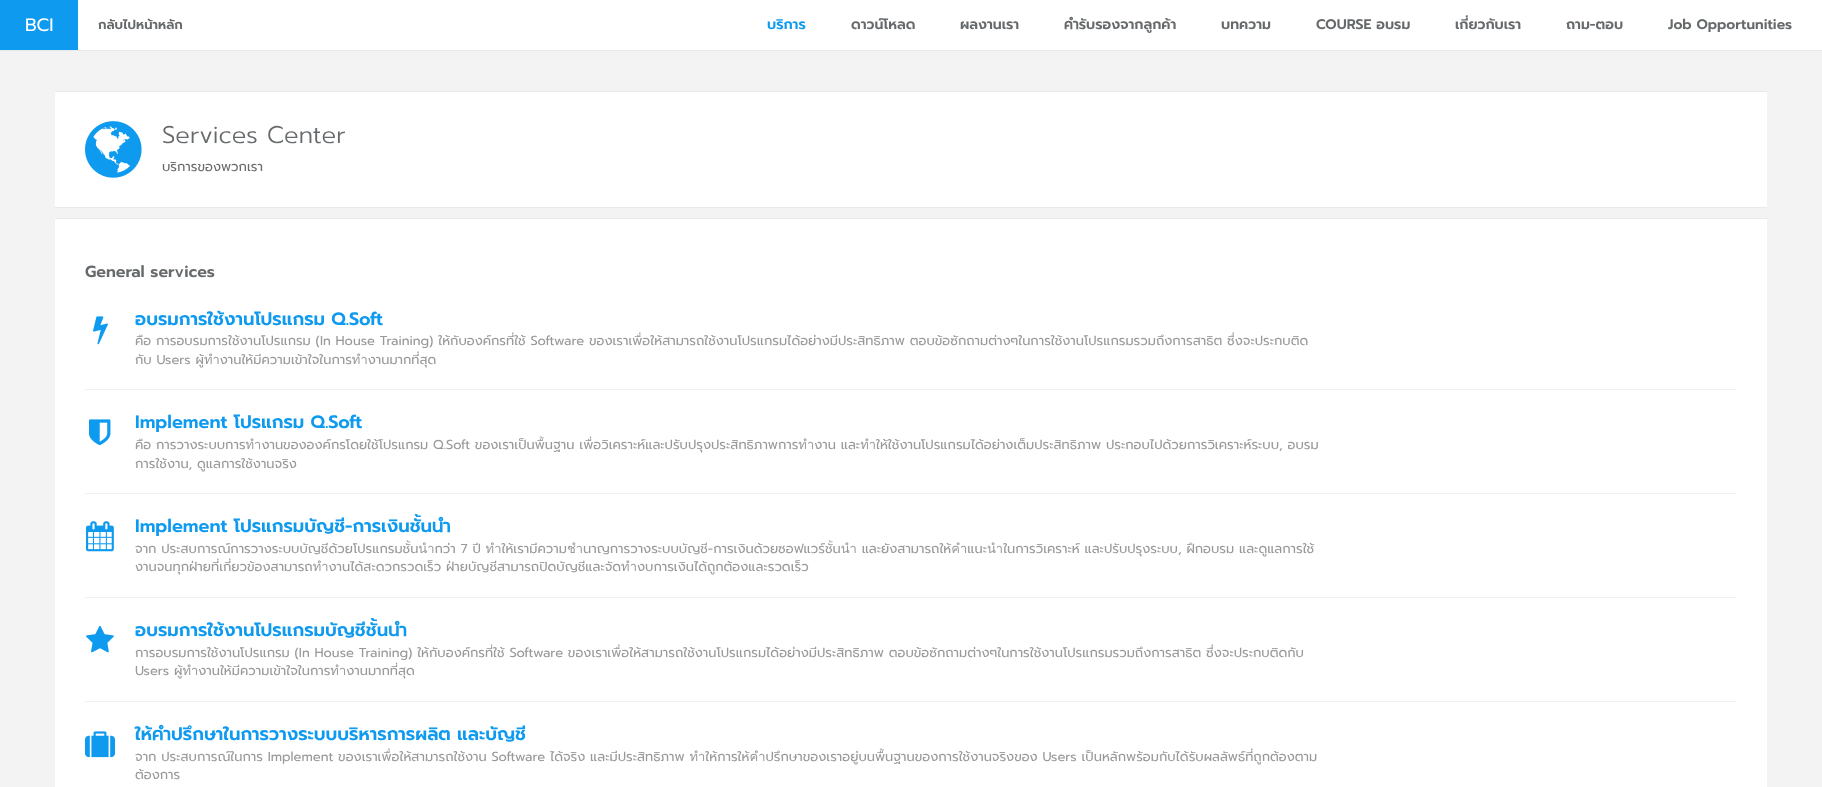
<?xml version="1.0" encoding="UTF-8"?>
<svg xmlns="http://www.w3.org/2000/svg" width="1822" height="787">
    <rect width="100%" height="100%" fill="#F3F3F4"/>
    <rect x="78" y="0" width="1744" height="50" fill="#FFFFFF"/>
    <rect x="0" y="50" width="1822" height="1" fill="#E7EAEC"/>
    <rect x="0" y="0" width="78" height="50" fill="#0E9AEF"/>
    <text x="25" y="31" font-family="Prompt" font-size="18" fill="#FFFFFF">BCI</text>
    <text x="98" y="29" font-family="Prompt" font-size="13" font-weight="600" fill="#676A6C">กลับไปหน้าหลัก</text>
    <text x="767" y="29" font-family="Prompt" font-size="14" font-weight="600" fill="#0E9AEF">บริการ</text>
    <text x="851" y="29" font-family="Prompt" font-size="14" font-weight="600" fill="#676A6C">ดาวน์โหลด</text>
    <text x="960" y="29" font-family="Prompt" font-size="14" font-weight="600" fill="#676A6C">ผลงานเรา</text>
    <text x="1064" y="29" font-family="Prompt" font-size="14" font-weight="600" fill="#676A6C">คำรับรองจากลูกค้า</text>
    <text x="1221" y="29" font-family="Prompt" font-size="14" font-weight="600" fill="#676A6C">บทความ</text>
    <text x="1316" y="29" font-family="Prompt" font-size="14" font-weight="600" fill="#676A6C">COURSE อบรม</text>
    <text x="1455" y="29" font-family="Prompt" font-size="14" font-weight="600" fill="#676A6C">เกี่ยวกับเรา</text>
    <text x="1566" y="29" font-family="Prompt" font-size="14" font-weight="600" fill="#676A6C">ถาม-ตอบ</text>
    <text x="1668" y="29" font-family="Prompt" font-size="14" font-weight="600" fill="#676A6C">Job Opportunities</text>
    <rect x="55" y="92" width="1712" height="115" fill="#FFFFFF"/>
    <rect x="55" y="91" width="1712" height="1" fill="#E7EAEC"/>
    <rect x="55" y="207" width="1712" height="1" fill="#E7EAEC"/>
    <image x="85" y="121" width="57" height="57" href="img_01.png"/>
    <text x="162" y="143" font-family="Prompt" font-size="24" font-weight="300" fill="#676A6C">Services Center</text>
    <text x="162" y="171" font-family="Prompt" font-size="13" fill="#676A6C">บริการของพวกเรา</text>
    <rect x="55" y="219" width="1712" height="568" fill="#FFFFFF"/>
    <rect x="55" y="218" width="1712" height="1" fill="#E7EAEC"/>
    <text x="85" y="277" font-family="Prompt" font-size="16" font-weight="600" fill="#676A6C">General services</text>
    <rect x="85" y="389" width="1652" height="1" fill="#F1F1F1"/>
    <image x="93" y="316" width="15" height="29" href="img_02.png"/>
    <text x="135" y="325" font-family="Prompt" font-size="18" font-weight="600" fill="#0E9AEF">อบรมการใช้งานโปรแกรม Q.Soft</text>
    <text font-family="Prompt" font-size="13" fill="#999999">
        <tspan x="135" y="345">คือ การอบรมการใช้งานโปรแกรม (In House Training) ให้กับองค์กรที่ใช้ Software ของเราเพื่อให้สามารถใช้งานโปรแกรมได้อย่างมีประสิทธิภาพ ตอบข้อซักถามต่างๆในการใช้งานโปรแกรมรวมถึงการสาธิต ซึ่งจะประกบติด</tspan>
        <tspan x="135" y="364">กับ Users ผู้ทำงานให้มีความเข้าใจในการทำงานมากที่สุด</tspan>
    </text>
    <rect x="85" y="493" width="1652" height="1" fill="#F1F1F1"/>
    <image x="89" y="419" width="22" height="27" href="img_03.png"/>
    <text x="135" y="428" font-family="Prompt" font-size="18" font-weight="600" fill="#0E9AEF">Implement โปรแกรม Q.Soft</text>
    <text font-family="Prompt" font-size="13" fill="#999999">
        <tspan x="135" y="449">คือ การวางระบบการทำงานขององค์กรโดยใช้โปรแกรม Q.Soft ของเราเป็นพื้นฐาน เพื่อวิเคราะห์และปรับปรุงประสิทธิภาพการทำงาน และทำให้ใช้งานโปรแกรมได้อย่างเต็มประสิทธิภาพ ประกอบไปด้วยการวิเคราะห์ระบบ, อบรม</tspan>
        <tspan x="135" y="468">การใช้งาน, ดูแลการใช้งานจริง</tspan>
    </text>
    <rect x="85" y="597" width="1652" height="1" fill="#F1F1F1"/>
    <image x="86" y="521" width="28" height="31" href="img_04.png"/>
    <text x="135" y="532" font-family="Prompt" font-size="18" font-weight="600" fill="#0E9AEF">Implement โปรแกรมบัญชี-การเงินชั้นนำ</text>
    <text font-family="Prompt" font-size="13" fill="#999999">
        <tspan x="135" y="553">จาก ประสบการณ์การวางระบบบัญชีด้วยโปรแกรมชั้นนำกว่า 7 ปี ทำให้เรามีความชำนาญการวางระบบบัญชี-การเงินด้วยซอฟแวร์ชั้นนำ และยังสามารถให้คำแนะนำในการวิเคราะห์ และปรับปรุงระบบ, ฝึกอบรม และดูแลการใช้</tspan>
        <tspan x="135" y="571">งานจนทุกฝ่ายที่เกี่ยวข้องสามารถทำงานได้สะดวกรวดเร็ว ฝ่ายบัญชีสามารถปิดบัญชีและจัดทำงบการเงินได้ถูกต้องและรวดเร็ว</tspan>
    </text>
    <rect x="85" y="701" width="1652" height="1" fill="#F1F1F1"/>
    <image x="86" y="625" width="28" height="28" href="img_05.png"/>
    <text x="135" y="636" font-family="Prompt" font-size="18" font-weight="600" fill="#0E9AEF">อบรมการใช้งานโปรแกรมบัญชีชั้นนำ</text>
    <text font-family="Prompt" font-size="13" fill="#999999">
        <tspan x="135" y="657">การอบรมการใช้งานโปรแกรม (In House Training) ให้กับองค์กรที่ใช้ Software ของเราเพื่อให้สามารถใช้งานโปรแกรมได้อย่างมีประสิทธิภาพ ตอบข้อซักถามต่างๆในการใช้งานโปรแกรมรวมถึงการสาธิต ซึ่งจะประกบติดกับ</tspan>
        <tspan x="135" y="675">Users ผู้ทำงานให้มีความเข้าใจในการทำงานมากที่สุด</tspan>
    </text>
    <image x="85" y="731" width="30" height="27" href="img_06.png"/>
    <text x="135" y="740" font-family="Prompt" font-size="18" font-weight="600" fill="#0E9AEF">ให้คำปรึกษาในการวางระบบบริหารการผลิต และบัญชี</text>
    <text font-family="Prompt" font-size="13" fill="#999999">
        <tspan x="135" y="761">จาก ประสบการณ์ในการ Implement ของเราเพื่อให้สามารถใช้งาน Software ได้จริง และมีประสิทธิภาพ ทำให้การให้คำปรึกษาของเราอยู่บนพื้นฐานของการใช้งานจริงของ Users เป็นหลักพร้อมกับได้รับผลลัพธ์ที่ถูกต้องตาม</tspan>
        <tspan x="135" y="779">ต้องการ</tspan>
    </text>
</svg>
